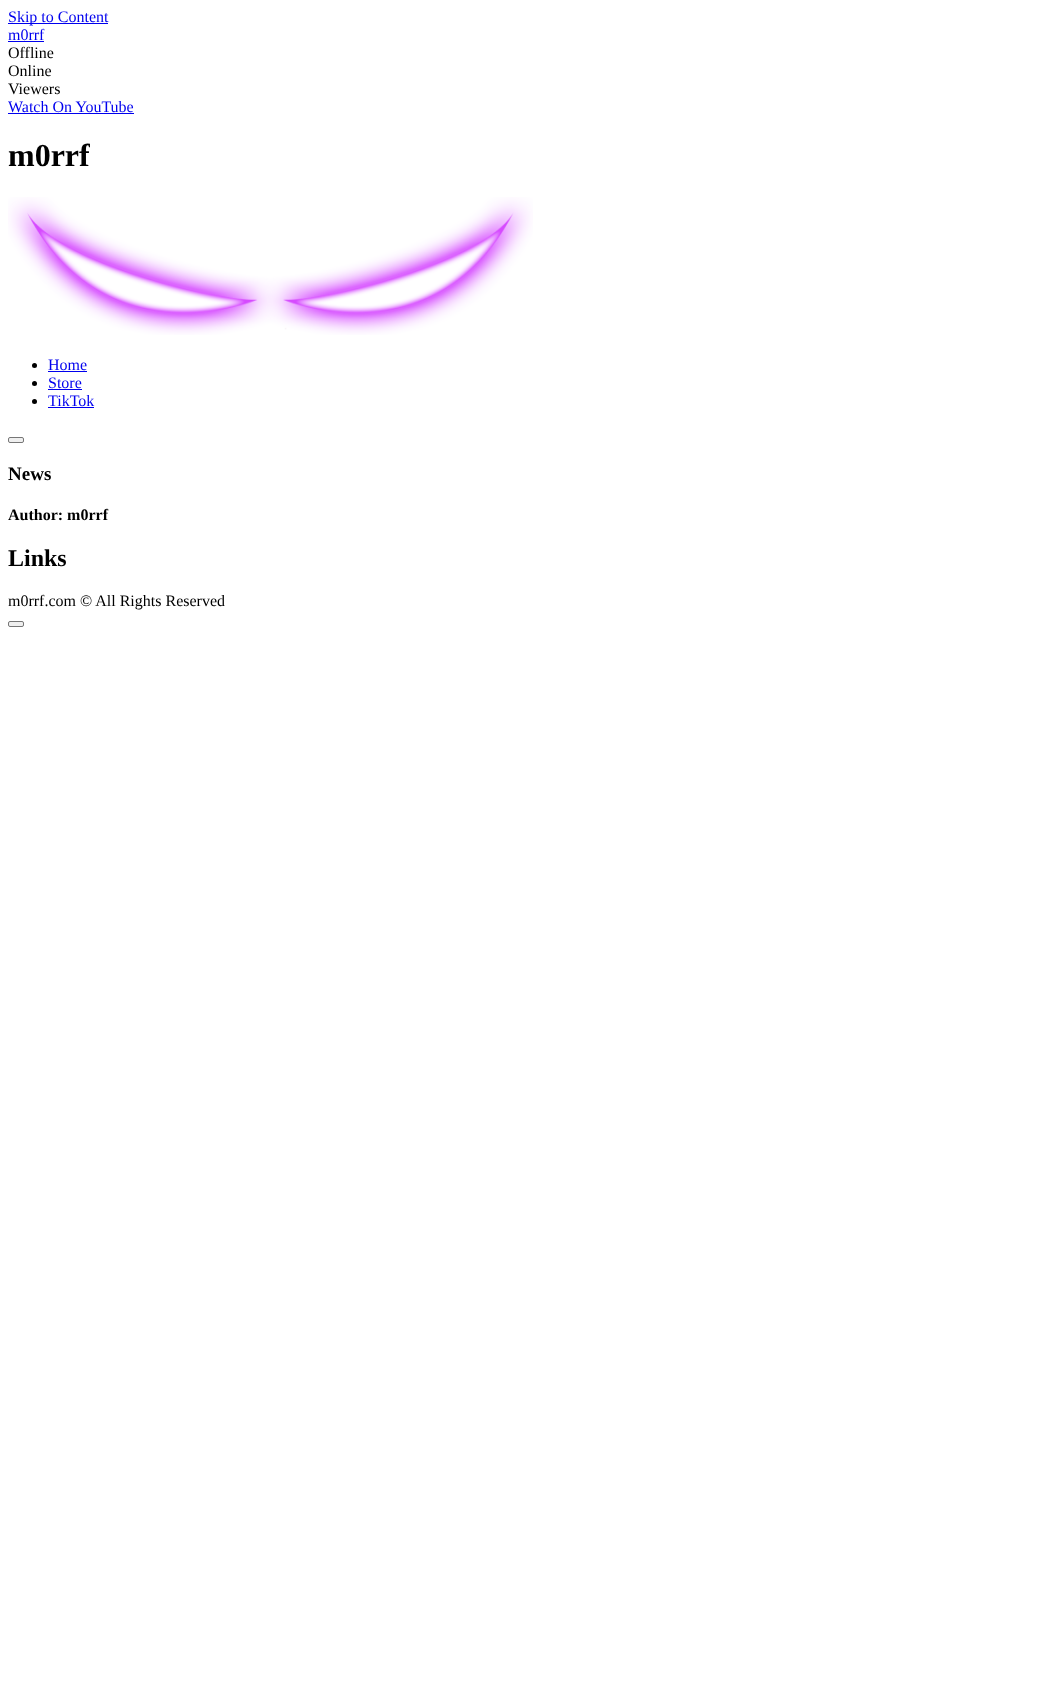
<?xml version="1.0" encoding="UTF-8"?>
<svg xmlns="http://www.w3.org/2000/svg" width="1064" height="1698">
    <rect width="100%" height="100%" fill="#FFFFFF"/>
    <rect x="8" y="23" width="100" height="1" fill="#0000EE"/>
    <text font-family="Liberation Serif" font-size="16" fill="#0000EE">
        <tspan x="8" y="22">Skip to Content</tspan>
        <tspan x="8" y="40">m0rrf</tspan>
    </text>
    <rect x="8" y="41" width="36" height="1" fill="#0000EE"/>
    <text font-family="Liberation Serif" font-size="16" fill="#000000">
        <tspan x="8" y="58">Offline</tspan>
        <tspan x="8" y="76">Online</tspan>
        <tspan x="8" y="94">Viewers</tspan>
    </text>
    <text x="8" y="112" font-family="Liberation Serif" font-size="16" fill="#0000EE">Watch On YouTube</text>
    <rect x="8" y="113" width="126" height="1" fill="#0000EE"/>
    <text x="8" y="166" font-family="Liberation Serif" font-size="32" font-weight="700" fill="#000000">m0rrf</text>
    <image x="8" y="197" width="525" height="138" href="img_01.png"/>
    <circle cx="34.5" cy="365.5" r="2.5" fill="#000000"/>
    <text x="48" y="370" font-family="Liberation Serif" font-size="16" fill="#0000EE">Home</text>
    <rect x="48" y="371" width="39" height="1" fill="#0000EE"/>
    <circle cx="34.5" cy="383.5" r="2.5" fill="#000000"/>
    <text x="48" y="388" font-family="Liberation Serif" font-size="16" fill="#0000EE">Store</text>
    <rect x="48" y="389" width="34" height="1" fill="#0000EE"/>
    <circle cx="34.5" cy="401.5" r="2.5" fill="#000000"/>
    <text x="48" y="406" font-family="Liberation Serif" font-size="16" fill="#0000EE">TikTok</text>
    <rect x="48" y="407" width="46" height="1" fill="#0000EE"/>
    <rect x="8.5" y="437.5" width="15" height="5" rx="1.5" fill="#EFEFEF" stroke="#767676"/>
    <text x="8" y="480" font-family="Liberation Serif" font-size="19" font-weight="700" fill="#000000">News</text>
    <text x="8" y="520" font-family="Liberation Serif" font-size="16" font-weight="700" fill="#000000">Author: m0rrf</text>
    <text x="8" y="566" font-family="Liberation Serif" font-size="24" font-weight="700" fill="#000000">Links</text>
    <text x="8" y="606" font-family="Liberation Serif" font-size="16" fill="#000000">m0rrf.com © All Rights Reserved</text>
    <rect x="8.5" y="621.5" width="15" height="5" rx="1.5" fill="#EFEFEF" stroke="#767676"/>
</svg>
